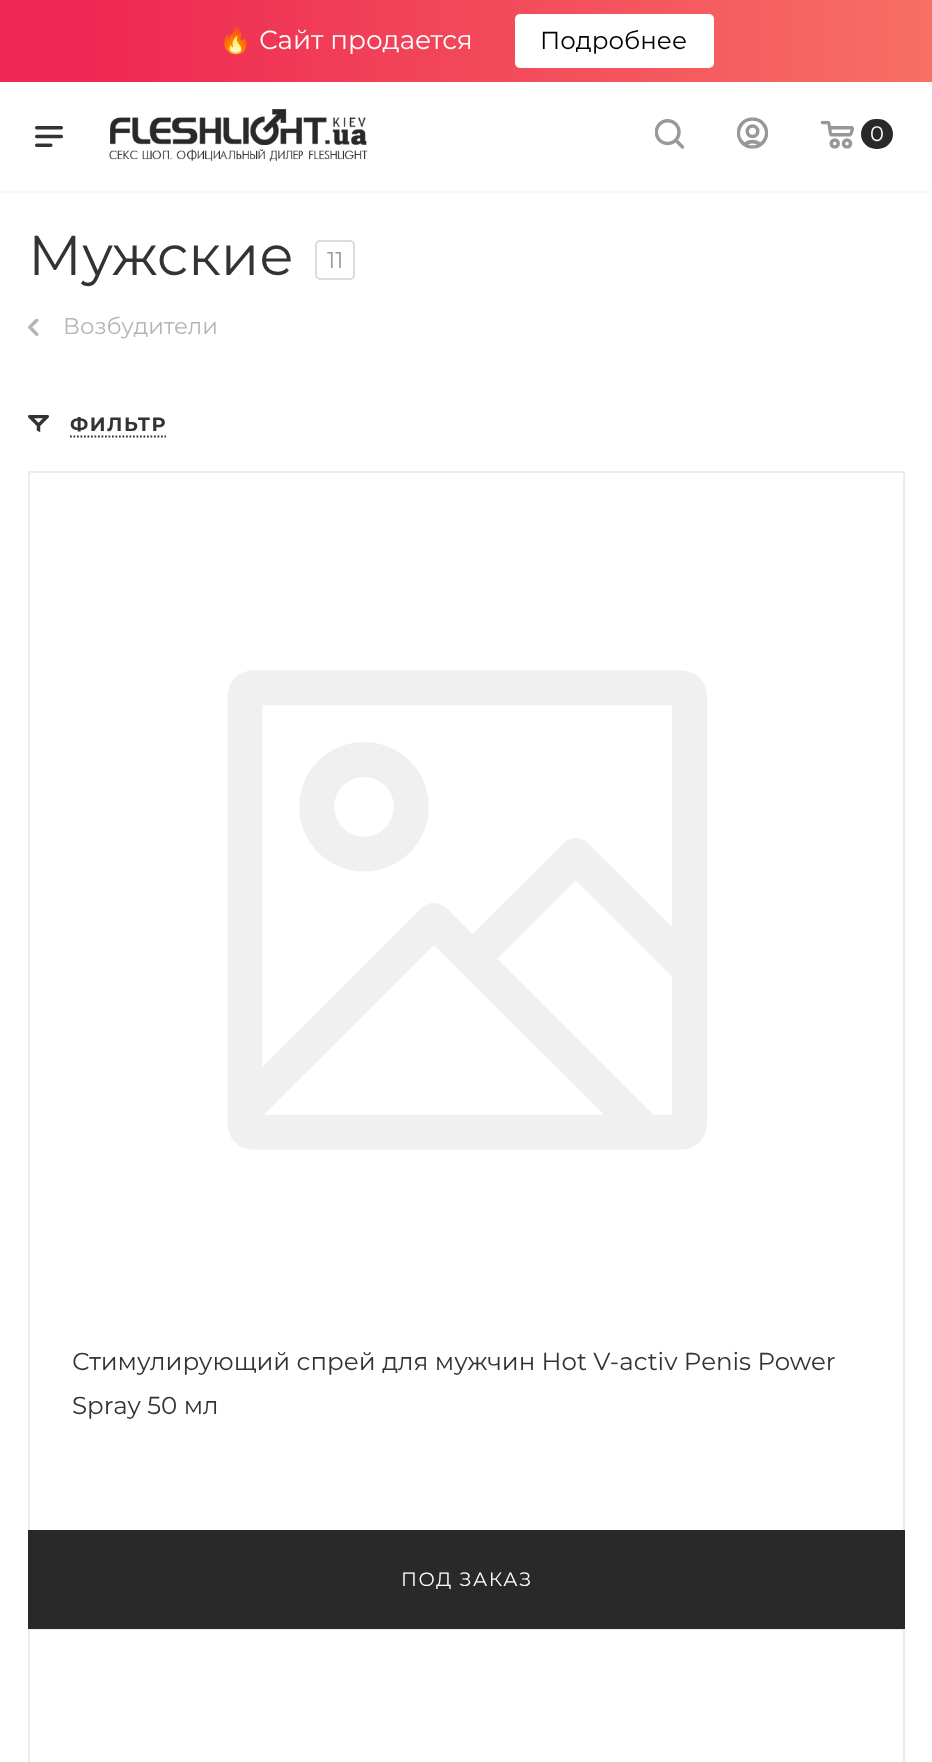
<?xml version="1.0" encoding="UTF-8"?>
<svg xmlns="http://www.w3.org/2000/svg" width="932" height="1762">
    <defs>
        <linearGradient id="g1" gradientUnits="userSpaceOnUse" x1="0" y1="41" x2="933" y2="41"><stop offset="0.1" stop-color="#EE2852"/><stop offset="1" stop-color="#F86F64"/></linearGradient>
    </defs>
    <rect width="100%" height="100%" fill="#FFFFFF"/>
    <rect x="0" y="0" width="932" height="82" fill="url(#g1)"/>
    <text x="219" y="49" font-family="Noto Color Emoji" font-size="26.25" fill="#FFFFFF">🔥</text>
    <text x="259" y="49" font-family="Montserrat" font-size="26.25" fill="#FFFFFF">Сайт продается</text>
    <rect x="515" y="14" width="199" height="54" rx="5" fill="#FFFFFF"/>
    <text x="540" y="49" font-family="Montserrat" font-size="24.5" fill="#000000">Подробнее</text>
    <rect x="0" y="191" width="932" height="2" fill="#F8F8F8"/>
    <image x="35" y="126" width="28" height="21" href="img_01.png"/>
    <image x="109" y="109" width="259" height="53" href="img_02.png"/>
    <image x="655" y="119" width="29" height="30" href="img_03.png"/>
    <image x="736" y="117" width="33" height="32" href="img_04.png"/>
    <image x="820" y="120" width="34" height="29" href="img_05.png"/>
    <rect x="861" y="119" width="32" height="30" rx="15" fill="#292929"/>
    <text x="870" y="141" font-family="Montserrat" font-size="21" fill="#FFFFFF">0</text>
    <text x="28" y="275" font-family="Montserrat" font-size="56" fill="#333333">Мужские</text>
    <rect x="316" y="241" width="38" height="38" rx="4" fill="none" stroke="#DBDBDB" stroke-width="2"/>
    <text x="327" y="268" font-family="Montserrat" font-size="22.75" fill="#999999">11</text>
    <image x="28" y="319" width="11" height="17" href="img_06.png"/>
    <text x="63" y="334" font-family="Montserrat" font-size="22.75" fill="#B6B5B5">Возбудители</text>
    <image x="28" y="415" width="21" height="17" href="img_07.png"/>
    <text x="70" y="431" font-family="Montserrat" font-size="19.25" font-weight="700" letter-spacing="1.5" fill="#333333">ФИЛЬТР</text>
    <path d="M 70 436.5 H 166" fill="none" stroke="#333333" stroke-width="1.8" stroke-dasharray="1.75 1.75"/>
    <rect x="29" y="472" width="875" height="1156" fill="none" stroke="#ECECEC" stroke-width="2"/>
    <image x="227" y="670" width="480" height="480" href="img_08.png"/>
    <text font-family="Montserrat" font-size="24.5" fill="#333333">
        <tspan x="72" y="1370">Стимулирующий спрей для мужчин Hot V-activ Penis Power</tspan>
        <tspan x="72" y="1414">Spray 50 мл</tspan>
    </text>
    <rect x="29" y="1629" width="875" height="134" fill="none" stroke="#ECECEC" stroke-width="2"/>
    <rect x="28" y="1530" width="877" height="99" fill="#292929"/>
    <text x="401" y="1586" font-family="Montserrat" font-size="19.25" letter-spacing="1.5" fill="#FFFFFF">ПОД ЗАКАЗ</text>
</svg>
